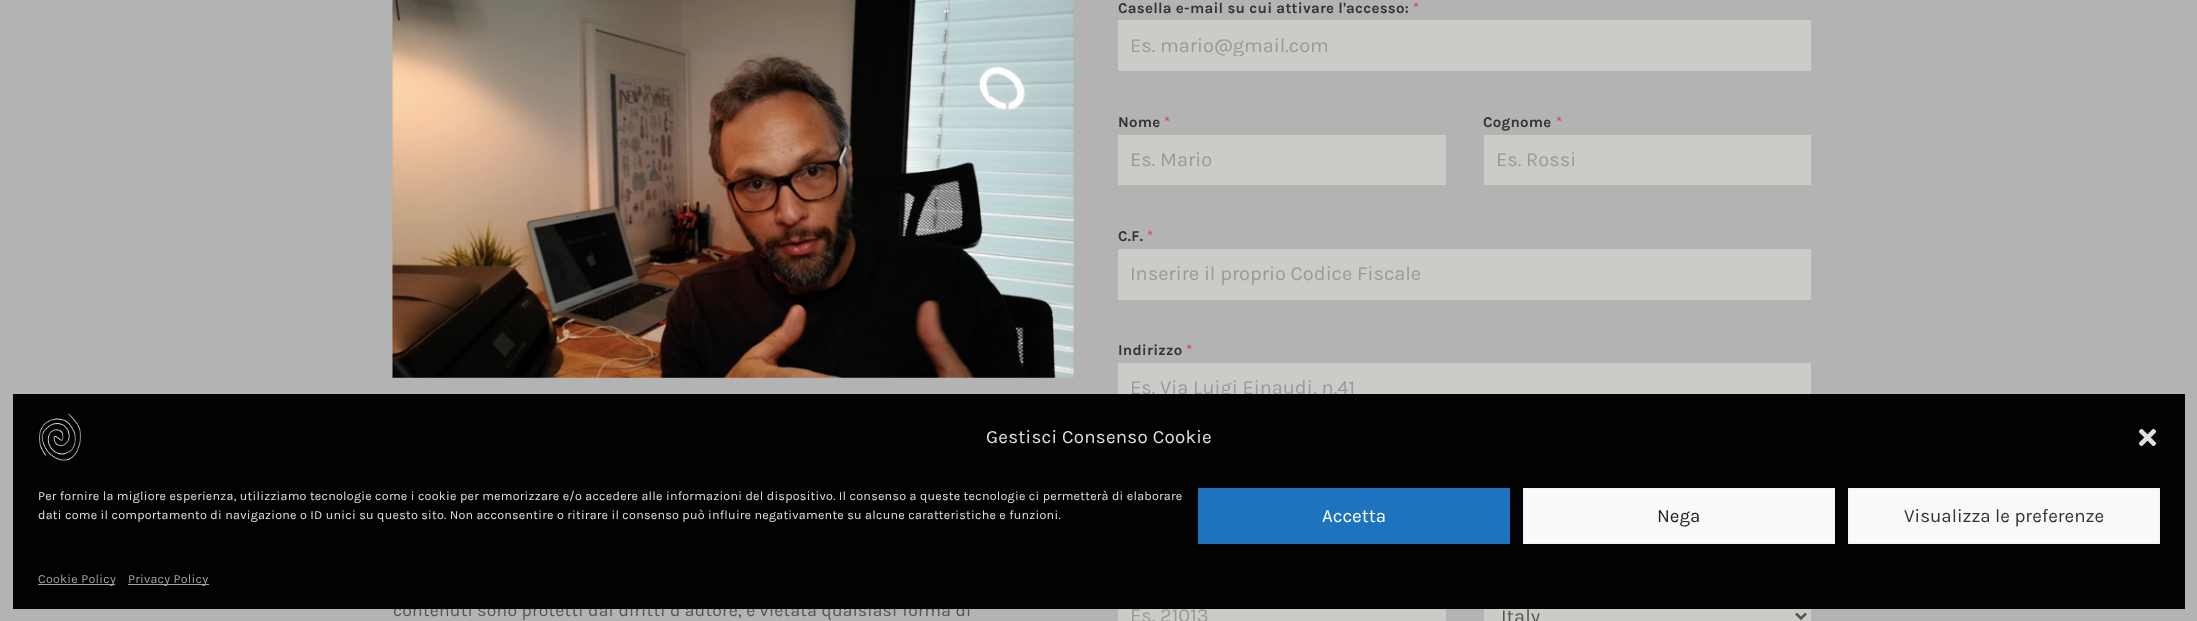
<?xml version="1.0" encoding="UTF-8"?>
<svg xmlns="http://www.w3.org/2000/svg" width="2197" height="621">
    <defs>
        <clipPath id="clip1"><rect x="1130" y="33" width="669" height="23"/></clipPath>
    </defs>
    <rect width="100%" height="100%" fill="#B3B3B3"/>
    <image x="392" y="0" width="682" height="378" href="img_01.png"/>
    <text x="393" y="616" font-family="Karla" font-size="17.5" letter-spacing="0.25" fill="#555555">contenuti sono protetti dai diritti d’autore, è vietata qualsiasi forma di</text>
    <text x="1118" y="13" font-family="Karla" font-size="15" font-weight="700" letter-spacing="0.25" fill="#333333">Casella e-mail su cui attivare l'accesso:</text>
    <text x="1413" y="13" font-family="Karla" font-size="15" font-weight="700" letter-spacing="0.25" fill="#E04562">*</text>
    <rect x="1118" y="20" width="693" height="51" fill="#CCCBC7"/>
    <g clip-path="url(#clip1)">
        <text x="1130" y="52" font-family="Karla" font-size="20" fill="#999999">Es. mario@gmail.com</text>
    </g>
    <text x="1118" y="127" font-family="Karla" font-size="15" font-weight="700" letter-spacing="0.25" fill="#333333">Nome</text>
    <text x="1164" y="127" font-family="Karla" font-size="15" font-weight="700" letter-spacing="0.25" fill="#E04562">*</text>
    <rect x="1118" y="135" width="328" height="50" fill="#CCCBC7"/>
    <text x="1130" y="166" font-family="Karla" font-size="20" fill="#999999">Es. Mario</text>
    <text x="1483" y="127" font-family="Karla" font-size="15" font-weight="700" letter-spacing="0.25" fill="#333333">Cognome</text>
    <text x="1556" y="127" font-family="Karla" font-size="15" font-weight="700" letter-spacing="0.25" fill="#E04562">*</text>
    <rect x="1484" y="135" width="327" height="50" fill="#CCCBC7"/>
    <text x="1496" y="166" font-family="Karla" font-size="20" fill="#999999">Es. Rossi</text>
    <text x="1118" y="241" font-family="Karla" font-size="15" font-weight="700" letter-spacing="0.25" fill="#333333">C.F.</text>
    <text x="1147" y="241" font-family="Karla" font-size="15" font-weight="700" letter-spacing="0.25" fill="#E04562">*</text>
    <rect x="1118" y="249" width="693" height="51" fill="#CCCBC7"/>
    <text x="1130" y="280" font-family="Karla" font-size="20" fill="#999999">Inserire il proprio Codice Fiscale</text>
    <text x="1118" y="355" font-family="Karla" font-size="15" font-weight="700" letter-spacing="0.25" fill="#333333">Indirizzo</text>
    <text x="1186" y="355" font-family="Karla" font-size="15" font-weight="700" letter-spacing="0.25" fill="#E04562">*</text>
    <rect x="1118" y="363" width="693" height="31" fill="#CCCBC7"/>
    <text x="1130" y="394" font-family="Karla" font-size="20" fill="#999999">Es. Via Luigi Einaudi, n.41</text>
    <rect x="1118" y="609" width="328" height="12" fill="#CCCBC7"/>
    <text x="1130" y="622" font-family="Karla" font-size="20" fill="#999999">Es. 21013</text>
    <rect x="1484" y="609" width="327" height="12" fill="#CCCBC7"/>
    <path d="M 1796 613.5 L 1801 618.5 L 1806 613.5" fill="none" stroke="#555555" stroke-width="2.5"/>
    <text x="1501" y="623" font-family="Karla" font-size="20" fill="#555555">Italy</text>
    <rect x="13" y="394" width="2172" height="215" fill="#020202"/>
    <image x="39" y="413" width="42" height="48" href="img_02.png"/>
    <text x="986" y="443" font-family="Karla" font-size="18.75" letter-spacing="0.25" fill="#E0E0E0">Gestisci Consenso Cookie</text>
    <image x="2138" y="428" width="19" height="19" href="img_03.png"/>
    <text font-family="Karla" font-size="12.5" letter-spacing="0.25" fill="#E0E0E0">
        <tspan x="38" y="500">Per fornire la migliore esperienza, utilizziamo tecnologie come i cookie per memorizzare e/o accedere alle informazioni del dispositivo. Il consenso a queste tecnologie ci permetterà di elaborare</tspan>
        <tspan x="38" y="519">dati come il comportamento di navigazione o ID unici su questo sito. Non acconsentire o ritirare il consenso può influire negativamente su alcune caratteristiche e funzioni.</tspan>
    </text>
    <rect x="1198" y="488" width="312" height="56" fill="#1E73BE"/>
    <text x="1322" y="522" font-family="Karla" font-size="18.75" fill="#FFFFFF">Accetta</text>
    <rect x="1523.5" y="488.5" width="311" height="55" fill="#F9F9F9" stroke="#F2F2F2"/>
    <text x="1657" y="522" font-family="Karla" font-size="18.75" fill="#222222">Nega</text>
    <rect x="1848.5" y="488.5" width="311" height="55" fill="#F9F9F9" stroke="#F2F2F2"/>
    <text x="1904" y="522" font-family="Karla" font-size="18.75" fill="#333333">Visualizza le preferenze</text>
    <rect x="38" y="584" width="77" height="1" fill="#A3A3A3"/>
    <text x="38" y="583" font-family="Karla" font-size="12.5" letter-spacing="0.25" fill="#A3A3A3">Cookie Policy</text>
    <rect x="128" y="584" width="81" height="1" fill="#A3A3A3"/>
    <text x="128" y="583" font-family="Karla" font-size="12.5" letter-spacing="0.25" fill="#A3A3A3">Privacy Policy</text>
</svg>
